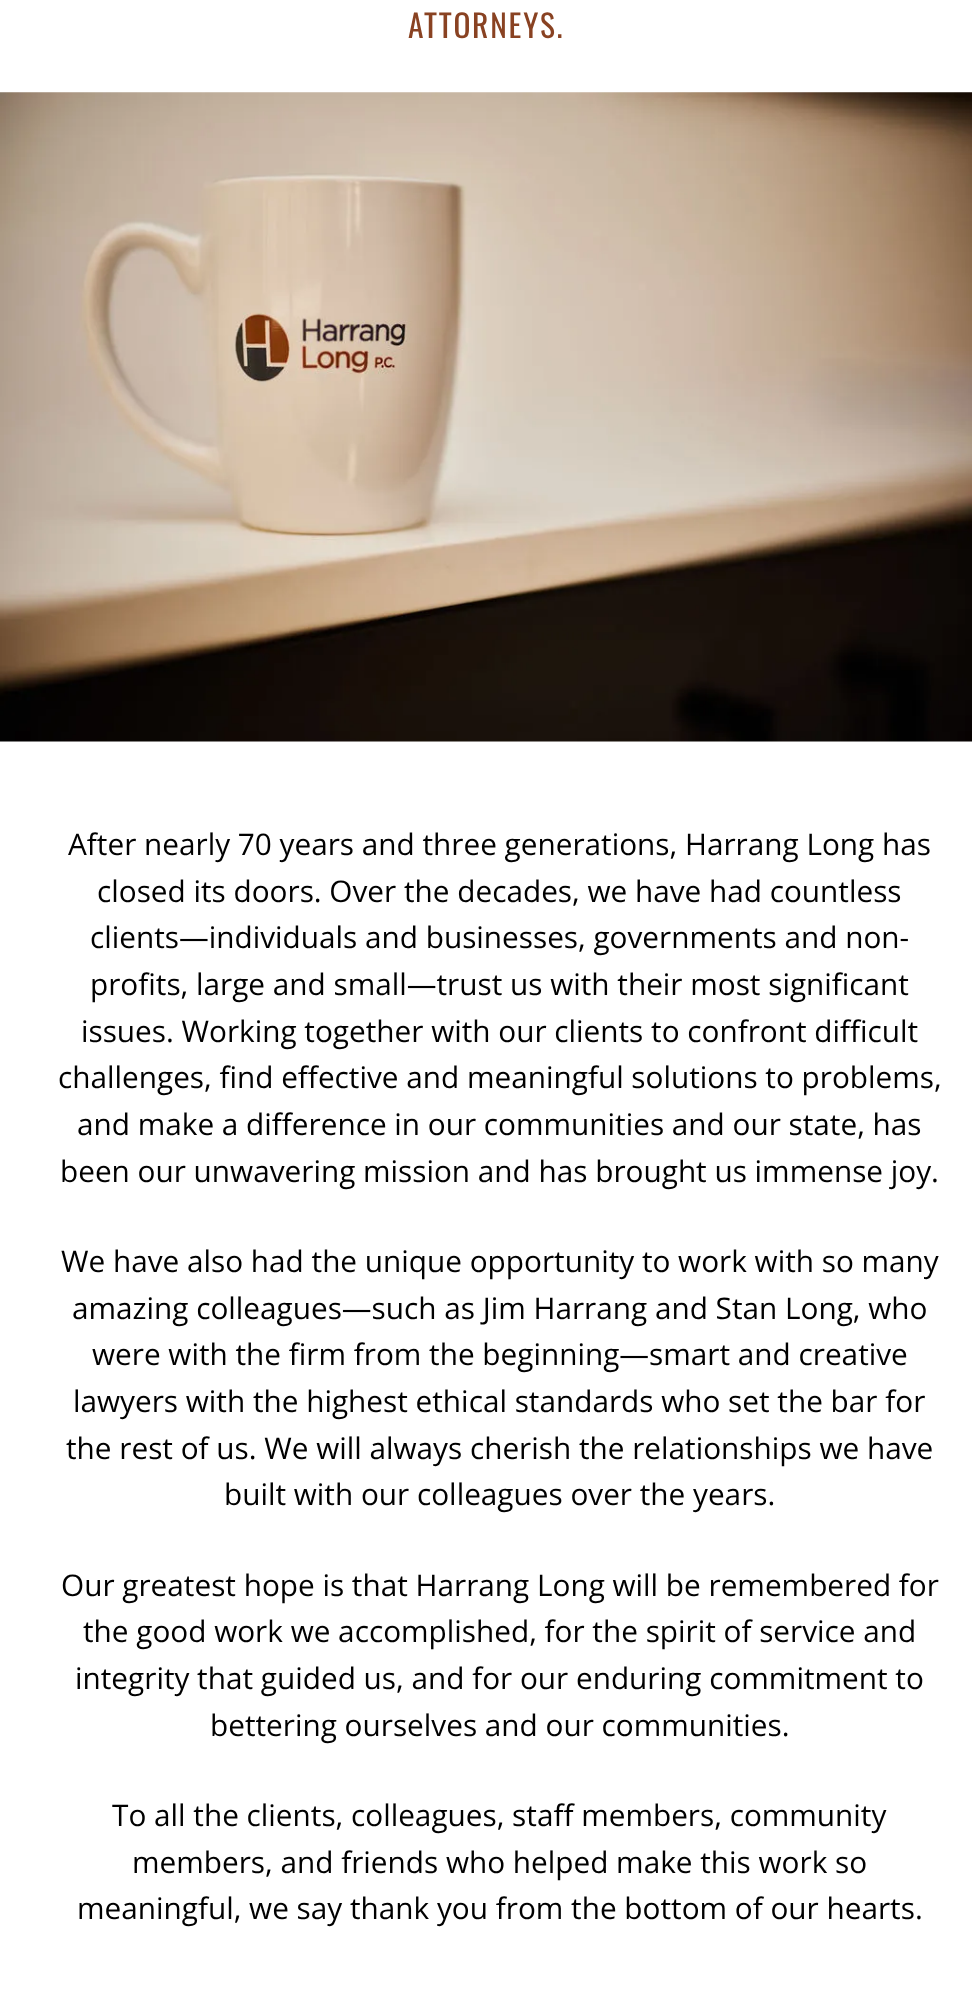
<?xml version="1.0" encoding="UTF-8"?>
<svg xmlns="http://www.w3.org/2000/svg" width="972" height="2002">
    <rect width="100%" height="100%" fill="#FFFFFF"/>
    <text x="408" y="38" font-family="Oswald" font-size="31.5" letter-spacing="1.75" fill="#894222">ATTORNEYS.</text>
    <image x="0" y="92" width="972" height="650" href="img_01.png"/>
    <text x="68" y="855" font-family="Open Sans" font-size="29.75" fill="#000000">After nearly 70 years and three generations, Harrang Long has</text>
    <text x="97" y="902" font-family="Open Sans" font-size="29.75" fill="#000000">closed its doors. Over the decades, we have had countless</text>
    <text font-family="Open Sans" font-size="29.75" fill="#000000">
        <tspan x="90" y="948">clients—individuals and businesses, governments and non-</tspan>
        <tspan x="90" y="995">profits, large and small—trust us with their most significant</tspan>
    </text>
    <text x="81" y="1042" font-family="Open Sans" font-size="29.75" fill="#000000">issues. Working together with our clients to confront difficult</text>
    <text x="58" y="1088" font-family="Open Sans" font-size="29.75" fill="#000000">challenges, find effective and meaningful solutions to problems,</text>
    <text x="77" y="1135" font-family="Open Sans" font-size="29.75" fill="#000000">and make a difference in our communities and our state, has</text>
    <text x="60" y="1182" font-family="Open Sans" font-size="29.75" fill="#000000">been our unwavering mission and has brought us immense joy.</text>
    <text x="61" y="1272" font-family="Open Sans" font-size="29.75" fill="#000000">We have also had the unique opportunity to work with so many</text>
    <text x="72" y="1319" font-family="Open Sans" font-size="29.75" fill="#000000">amazing colleagues—such as Jim Harrang and Stan Long, who</text>
    <text x="92" y="1365" font-family="Open Sans" font-size="29.75" fill="#000000">were with the firm from the beginning—smart and creative</text>
    <text x="73" y="1412" font-family="Open Sans" font-size="29.75" fill="#000000">lawyers with the highest ethical standards who set the bar for</text>
    <text x="66" y="1459" font-family="Open Sans" font-size="29.75" fill="#000000">the rest of us. We will always cherish the relationships we have</text>
    <text x="224" y="1505" font-family="Open Sans" font-size="29.75" fill="#000000">built with our colleagues over the years.</text>
    <text x="61" y="1596" font-family="Open Sans" font-size="29.75" fill="#000000">Our greatest hope is that Harrang Long will be remembered for</text>
    <text x="83" y="1642" font-family="Open Sans" font-size="29.75" fill="#000000">the good work we accomplished, for the spirit of service and</text>
    <text x="75" y="1689" font-family="Open Sans" font-size="29.75" fill="#000000">integrity that guided us, and for our enduring commitment to</text>
    <text x="210" y="1736" font-family="Open Sans" font-size="29.75" fill="#000000">bettering ourselves and our communities.</text>
    <text x="112" y="1826" font-family="Open Sans" font-size="29.75" fill="#000000">To all the clients, colleagues, staff members, community</text>
    <text x="132" y="1873" font-family="Open Sans" font-size="29.75" fill="#000000">members, and friends who helped make this work so</text>
    <text x="77" y="1919" font-family="Open Sans" font-size="29.75" fill="#000000">meaningful, we say thank you from the bottom of our hearts.</text>
</svg>
